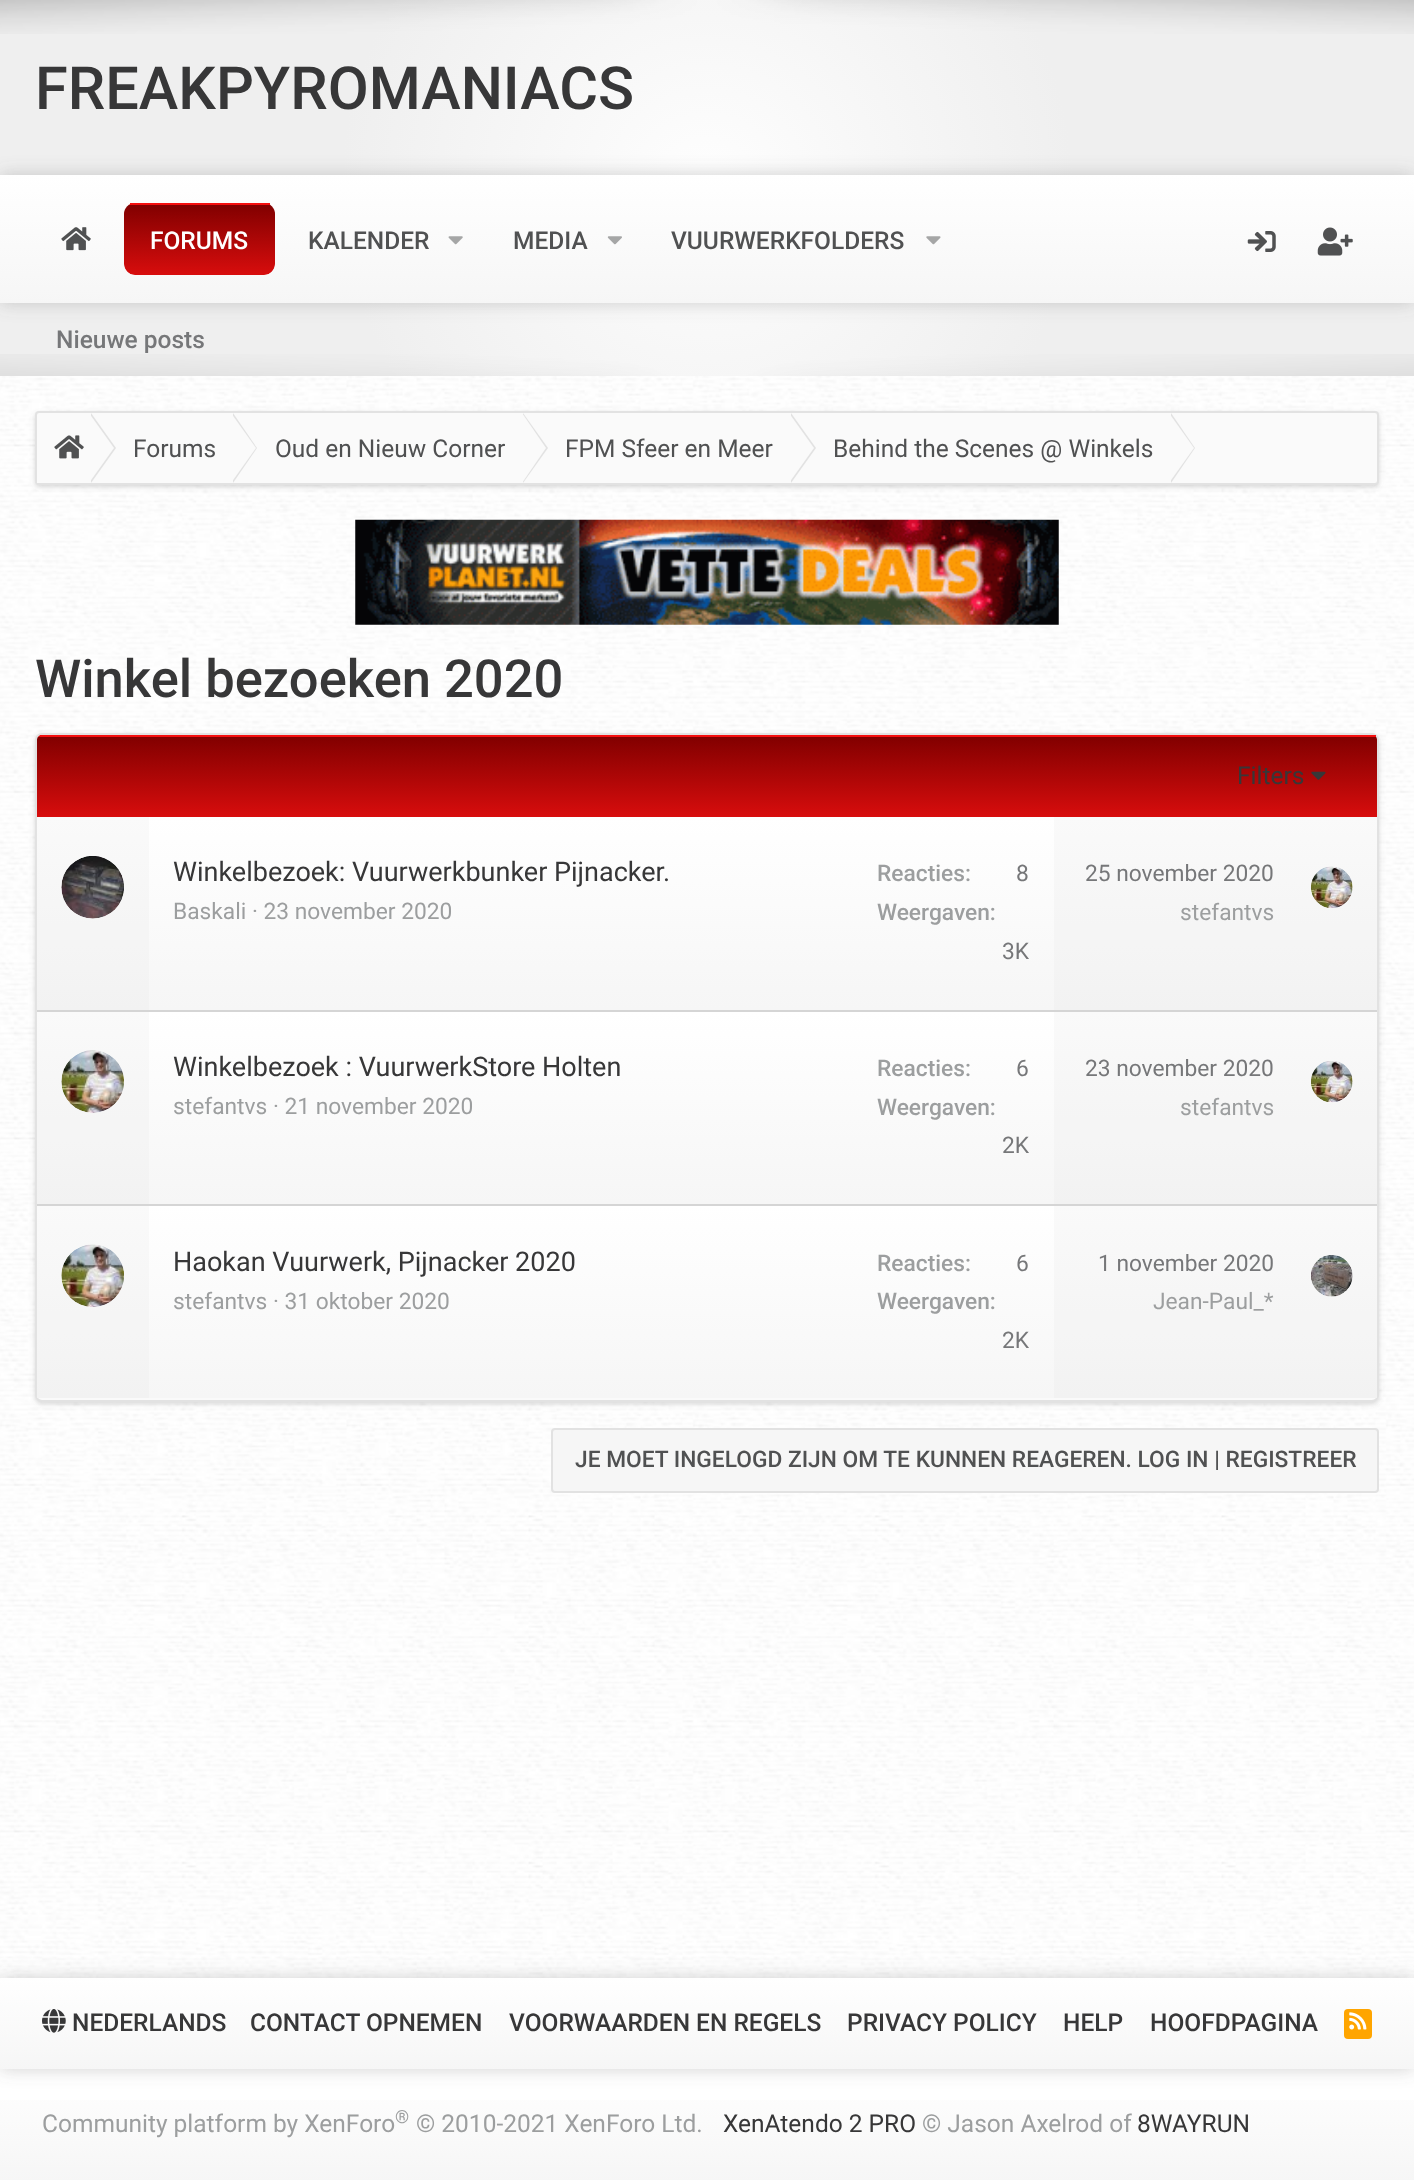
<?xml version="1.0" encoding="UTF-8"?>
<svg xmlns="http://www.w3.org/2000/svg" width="1414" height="2180">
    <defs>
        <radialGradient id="g1" gradientUnits="userSpaceOnUse" cx="707" cy="188" r="732"><stop offset="0" stop-color="#FEFEFE"/><stop offset="0.5" stop-color="#EFEFEF"/></radialGradient>
        <filter id="blur1" x="-50%" y="-200%" width="200%" height="500%"><feGaussianBlur stdDeviation="9"/></filter>
        <linearGradient id="g2" gradientUnits="userSpaceOnUse" x1="707" y1="175" x2="707" y2="303"><stop offset="0" stop-color="#FFFFFF"/><stop offset="1" stop-color="#F6F6F6"/></linearGradient>
        <clipPath id="clip1"><rect x="124" y="203" width="151" height="72" rx="11"/></clipPath>
        <linearGradient id="g3" gradientUnits="userSpaceOnUse" x1="200" y1="135" x2="200" y2="205"><stop offset="0" stop-color="#820000"/><stop offset="1" stop-color="#D80D0D"/></linearGradient>
        <linearGradient id="g4" gradientUnits="userSpaceOnUse" x1="200" y1="205" x2="200" y2="275"><stop offset="0" stop-color="#820000"/><stop offset="1" stop-color="#D80D0D"/></linearGradient>
        <filter id="blur2" x="-50%" y="-200%" width="200%" height="500%"><feGaussianBlur stdDeviation="2.5"/></filter>
        <clipPath id="clip2"><path d="M 42 735 H 1372 C 1375 735 1377 737 1377 740 V 817 H 37 V 740 C 37 737 39 735 42 735 Z"/></clipPath>
        <linearGradient id="g5" gradientUnits="userSpaceOnUse" x1="707" y1="656" x2="707" y2="737"><stop offset="0" stop-color="#820000"/><stop offset="1" stop-color="#D80D0D"/></linearGradient>
        <linearGradient id="g6" gradientUnits="userSpaceOnUse" x1="707" y1="737" x2="707" y2="817"><stop offset="0" stop-color="#820000"/><stop offset="1" stop-color="#D80D0D"/></linearGradient>
        <linearGradient id="g7" gradientUnits="userSpaceOnUse" x1="707" y1="817" x2="707" y2="1010"><stop offset="0" stop-color="#FFFFFF"/><stop offset="1" stop-color="#F6F6F6"/></linearGradient>
        <linearGradient id="g8" gradientUnits="userSpaceOnUse" x1="707" y1="1012" x2="707" y2="1204"><stop offset="0" stop-color="#FFFFFF"/><stop offset="1" stop-color="#F6F6F6"/></linearGradient>
        <linearGradient id="g9" gradientUnits="userSpaceOnUse" x1="707" y1="1206" x2="707" y2="1398"><stop offset="0" stop-color="#FFFFFF"/><stop offset="1" stop-color="#F6F6F6"/></linearGradient>
        <linearGradient id="g10" gradientUnits="userSpaceOnUse" x1="707" y1="1978" x2="707" y2="2069"><stop offset="0" stop-color="#FFFFFF"/><stop offset="1" stop-color="#F6F6F6"/></linearGradient>
        <linearGradient id="g11" gradientUnits="userSpaceOnUse" x1="707" y1="2069" x2="707" y2="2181"><stop offset="0" stop-color="#FFFFFF"/><stop offset="1" stop-color="#F6F6F6"/></linearGradient>
    </defs>
    <rect width="100%" height="100%" fill="#FFFFFF"/>
    <image x="0" y="376" width="1414" height="1602" href="img_01.png"/>
    <rect x="0" y="0" width="1414" height="376" fill="url(#g1)"/>
    <image x="0" y="354" width="1414" height="22" href="img_02.png"/>
    <image x="0" y="0" width="1414" height="34" href="img_03.png"/>
    <text x="35" y="109" font-family="Roboto" font-size="59.5" font-weight="500" fill="#373738">FREAKPYROMANIACS</text>
    <rect x="0" y="175" width="1414" height="128" fill="#646464" fill-opacity="0.3" filter="url(#blur1)"/>
    <rect x="0" y="175" width="1414" height="128" fill="url(#g2)"/>
    <image x="61" y="227" width="30" height="24" href="img_04.png"/>
    <g clip-path="url(#clip1)">
        <rect x="124" y="204" width="151" height="1" fill="url(#g3)"/>
        <path d="M 124 205 H 275 V 264 C 275 270 270 275 264 275 H 135 C 129 275 124 270 124 264 Z" fill="url(#g4)"/>
    </g>
    <rect x="130" y="203" width="140" height="2" fill="#F50F0F"/>
    <text x="150" y="249" font-family="Roboto" font-size="24.5" font-weight="500" fill="#FFFFFF">FORUMS</text>
    <text x="308" y="249" font-family="Roboto" font-size="24.5" font-weight="500" fill="#505152">KALENDER</text>
    <image x="448" y="236" width="15" height="9" href="img_05.png"/>
    <text x="513" y="249" font-family="Roboto" font-size="24.5" font-weight="500" fill="#505152">MEDIA</text>
    <image x="607" y="236" width="15" height="9" href="img_06.png"/>
    <text x="671" y="249" font-family="Roboto" font-size="24.5" font-weight="500" fill="#505152">VUURWERKFOLDERS</text>
    <image x="926" y="236" width="15" height="9" href="img_07.png"/>
    <image x="1247" y="231" width="29" height="21" href="img_08.png"/>
    <image x="1317" y="227" width="36" height="29" href="img_09.png"/>
    <text x="56" y="348" font-family="Roboto" font-size="24.5" font-weight="500" fill="#767779">Nieuwe posts</text>
    <rect x="35" y="413" width="1344" height="74" rx="4" fill="#646464" fill-opacity="0.25" filter="url(#blur2)"/>
    <rect x="36" y="412" width="1342" height="72" rx="3" fill="#FAFAFA" stroke="#E2E2E2" stroke-width="2"/>
    <path d="M 42 413 H 86 C 89 413 91 415 91 418 V 483 H 37 V 418 C 37 415 39 413 42 413 Z" fill="#FAFAFA"/>
    <image x="54" y="435" width="30" height="24" href="img_10.png"/>
    <path d="M 91 483 V 413 L 116 448 Z" fill="#E2E2E2"/>
    <path d="M 89 483 V 413 L 114 448 Z" fill="#FAFAFA"/>
    <text x="133" y="457" font-family="Roboto" font-size="24.5" fill="#505152">Forums</text>
    <path d="M 233 483 V 413 L 257 448 Z" fill="#E2E2E2"/>
    <path d="M 231 483 V 413 L 256 448 Z" fill="#FAFAFA"/>
    <text x="275" y="457" font-family="Roboto" font-size="24.5" fill="#505152">Oud en Nieuw Corner</text>
    <path d="M 523 483 V 413 L 548 448 Z" fill="#E2E2E2"/>
    <path d="M 522 483 V 413 L 546 448 Z" fill="#FAFAFA"/>
    <text x="565" y="457" font-family="Roboto" font-size="24.5" fill="#505152">FPM Sfeer en Meer</text>
    <path d="M 791 483 V 413 L 816 448 Z" fill="#E2E2E2"/>
    <path d="M 789 483 V 413 L 814 448 Z" fill="#FAFAFA"/>
    <text x="833" y="457" font-family="Roboto" font-size="24.5" fill="#505152">Behind the Scenes @ Winkels</text>
    <path d="M 1171 483 V 413 L 1195 448 Z" fill="#E2E2E2"/>
    <path d="M 1169 483 V 413 L 1194 448 Z" fill="#FAFAFA"/>
    <image x="355" y="519" width="704" height="106" href="img_11.png"/>
    <text x="35" y="697" font-family="Roboto" font-size="52.5" font-weight="500" fill="#373738">Winkel bezoeken 2020</text>
    <rect x="35" y="735" width="1344" height="669" rx="7" fill="#646464" fill-opacity="0.25" filter="url(#blur2)"/>
    <rect x="36" y="734" width="1342" height="667" rx="6" fill="#FAFAFA" stroke="#E2E2E2" stroke-width="2"/>
    <g clip-path="url(#clip2)">
        <rect x="37" y="735" width="3" height="2" fill="url(#g5)"/>
        <rect x="37" y="737" width="1340" height="80" fill="url(#g6)"/>
    </g>
    <rect x="40" y="735" width="1336" height="2" fill="#F50F0F"/>
    <text x="1237" y="784" font-family="Roboto" font-size="24.5" fill="#373738">Filters</text>
    <image x="1311" y="771" width="15" height="9" href="img_12.png"/>
    <rect x="37" y="1010" width="1340" height="196" fill="#D5D5D5"/>
    <rect x="37" y="817" width="1340" height="193" fill="url(#g7)"/>
    <rect x="37" y="817" width="112" height="193" fill="#DCDCDC" fill-opacity="0.15"/>
    <circle cx="92.5" cy="887.5" r="31.5" fill="#FAFAFA"/>
    <image x="61" y="856" width="63" height="63" href="img_13.png"/>
    <text x="173" y="881" font-family="Roboto" font-size="27" fill="#373738">Winkelbezoek: Vuurwerkbunker Pijnacker.</text>
    <text x="173" y="919" font-family="Roboto" font-size="22.75" fill="#9C9E9F">Baskali · 23 november 2020</text>
    <text x="877" y="881" font-family="Roboto" font-size="22.75" font-weight="500" fill="#9C9E9F">Reacties:</text>
    <text x="1016" y="881" font-family="Roboto" font-size="22.75" fill="#767779">8</text>
    <text x="877" y="920" font-family="Roboto" font-size="22.75" font-weight="500" fill="#9C9E9F">Weergaven:</text>
    <text x="1002" y="959" font-family="Roboto" font-size="22.75" fill="#767779">3K</text>
    <rect x="1054" y="817" width="245" height="193" fill="#DCDCDC" fill-opacity="0.15"/>
    <text x="1085" y="881" font-family="Roboto" font-size="22.75" fill="#767779">25 november 2020</text>
    <text x="1180" y="920" font-family="Roboto" font-size="22.75" fill="#9C9E9F">stefantvs</text>
    <rect x="1299" y="817" width="78" height="193" fill="#DCDCDC" fill-opacity="0.15"/>
    <circle cx="1332" cy="887" r="21" fill="#FAFAFA"/>
    <image x="1310" y="866" width="43" height="42" href="img_14.png"/>
    <rect x="37" y="1012" width="1340" height="192" fill="url(#g8)"/>
    <rect x="37" y="1012" width="112" height="192" fill="#DCDCDC" fill-opacity="0.15"/>
    <circle cx="92.5" cy="1081.5" r="31.5" fill="#FAFAFA"/>
    <image x="61" y="1050" width="63" height="63" href="img_15.png"/>
    <text x="173" y="1076" font-family="Roboto" font-size="27" fill="#373738">Winkelbezoek : VuurwerkStore Holten</text>
    <text x="173" y="1114" font-family="Roboto" font-size="22.75" fill="#9C9E9F">stefantvs · 21 november 2020</text>
    <text x="877" y="1076" font-family="Roboto" font-size="22.75" font-weight="500" fill="#9C9E9F">Reacties:</text>
    <text x="1016" y="1076" font-family="Roboto" font-size="22.75" fill="#767779">6</text>
    <text x="877" y="1115" font-family="Roboto" font-size="22.75" font-weight="500" fill="#9C9E9F">Weergaven:</text>
    <text x="1002" y="1153" font-family="Roboto" font-size="22.75" fill="#767779">2K</text>
    <rect x="1054" y="1012" width="245" height="192" fill="#DCDCDC" fill-opacity="0.15"/>
    <text x="1085" y="1076" font-family="Roboto" font-size="22.75" fill="#767779">23 november 2020</text>
    <text x="1180" y="1115" font-family="Roboto" font-size="22.75" fill="#9C9E9F">stefantvs</text>
    <rect x="1299" y="1012" width="78" height="192" fill="#DCDCDC" fill-opacity="0.15"/>
    <circle cx="1332" cy="1082" r="21" fill="#FAFAFA"/>
    <image x="1311" y="1061" width="42" height="42" href="img_16.png"/>
    <rect x="37" y="1206" width="1340" height="192" fill="url(#g9)"/>
    <rect x="37" y="1206" width="112" height="192" fill="#DCDCDC" fill-opacity="0.15"/>
    <circle cx="92.5" cy="1275.5" r="31.5" fill="#FAFAFA"/>
    <image x="61" y="1244" width="63" height="63" href="img_17.png"/>
    <text x="173" y="1271" font-family="Roboto" font-size="27" fill="#373738">Haokan Vuurwerk, Pijnacker 2020</text>
    <text x="173" y="1309" font-family="Roboto" font-size="22.75" fill="#9C9E9F">stefantvs · 31 oktober 2020</text>
    <text x="877" y="1271" font-family="Roboto" font-size="22.75" font-weight="500" fill="#9C9E9F">Reacties:</text>
    <text x="1016" y="1271" font-family="Roboto" font-size="22.75" fill="#767779">6</text>
    <text x="877" y="1309" font-family="Roboto" font-size="22.75" font-weight="500" fill="#9C9E9F">Weergaven:</text>
    <text x="1002" y="1348" font-family="Roboto" font-size="22.75" fill="#767779">2K</text>
    <rect x="1054" y="1206" width="245" height="192" fill="#DCDCDC" fill-opacity="0.15"/>
    <text x="1098" y="1271" font-family="Roboto" font-size="22.75" fill="#767779">1 november 2020</text>
    <text x="1153" y="1309" font-family="Roboto" font-size="22.75" fill="#9C9E9F">Jean-Paul_*</text>
    <rect x="1299" y="1206" width="78" height="192" fill="#DCDCDC" fill-opacity="0.15"/>
    <circle cx="1332" cy="1276" r="21" fill="#FAFAFA"/>
    <image x="1311" y="1255" width="42" height="42" href="img_18.png"/>
    <rect x="552" y="1429" width="826" height="63" rx="3" fill="#F6F6F6" stroke="#E2E2E2" stroke-width="2"/>
    <text x="575" y="1467" font-family="Roboto" font-size="22.75" font-weight="500" fill="#505152">JE MOET INGELOGD ZIJN OM TE KUNNEN REAGEREN. LOG IN | REGISTREER</text>
    <rect x="0" y="1978" width="1414" height="91" fill="#646464" fill-opacity="0.3" filter="url(#blur1)"/>
    <rect x="0" y="1978" width="1414" height="91" fill="url(#g10)"/>
    <image x="42" y="2009" width="24" height="24" href="img_19.png"/>
    <text x="72" y="2031" font-family="Roboto" font-size="24.5" font-weight="500" fill="#373738">NEDERLANDS</text>
    <text x="250" y="2031" font-family="Roboto" font-size="24.5" font-weight="500" fill="#373738">CONTACT OPNEMEN</text>
    <text x="509" y="2031" font-family="Roboto" font-size="24.5" font-weight="500" fill="#373738">VOORWAARDEN EN REGELS</text>
    <text x="847" y="2031" font-family="Roboto" font-size="24.5" font-weight="500" fill="#373738">PRIVACY POLICY</text>
    <text x="1063" y="2031" font-family="Roboto" font-size="24.5" font-weight="500" fill="#373738">HELP</text>
    <text x="1150" y="2031" font-family="Roboto" font-size="24.5" font-weight="500" fill="#373738">HOOFDPAGINA</text>
    <rect x="1344" y="2009" width="28" height="30" rx="4" fill="#FFA500"/>
    <image x="1349" y="2012" width="18" height="18" href="img_20.png"/>
    <rect x="0" y="2100" width="1414" height="80" fill="url(#g11)"/>
    <text x="42" y="2132" font-family="Roboto" font-size="24.5" fill="#9C9E9F">Community platform by XenForo</text>
    <text x="395" y="2123" font-family="Roboto" font-size="18" fill="#9C9E9F">®</text>
    <text x="416" y="2132" font-family="Roboto" font-size="24.5" fill="#9C9E9F">© 2010-2021 XenForo Ltd.</text>
    <text x="723" y="2132" font-family="Roboto" font-size="24.5" fill="#373738">XenAtendo 2 PRO</text>
    <text x="922" y="2132" font-family="Roboto" font-size="24.5" fill="#9C9E9F">© Jason Axelrod of</text>
    <text x="1137" y="2132" font-family="Roboto" font-size="24.5" fill="#373738">8WAYRUN</text>
</svg>
